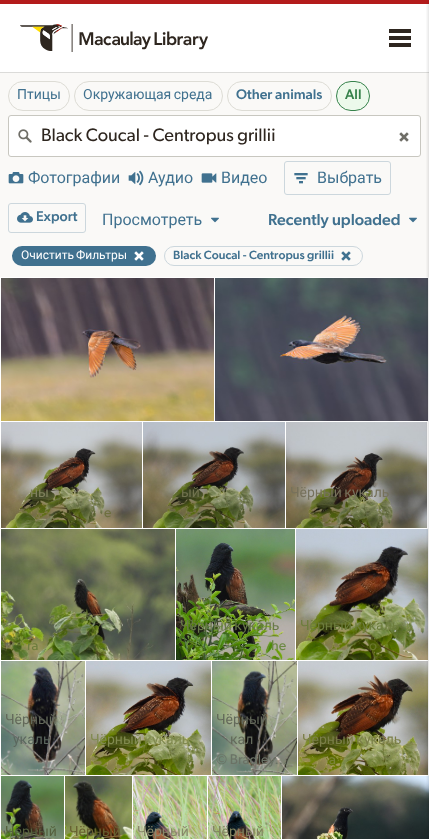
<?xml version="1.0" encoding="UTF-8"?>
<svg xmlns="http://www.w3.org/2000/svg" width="429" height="839">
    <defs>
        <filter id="blur1" x="-50%" y="-200%" width="200%" height="500%"><feGaussianBlur stdDeviation="2"/></filter>
    </defs>
    <rect width="100%" height="100%" fill="#FFFFFF"/>
    <rect x="0" y="0" width="429" height="4" fill="#B31B1B"/>
    <rect x="0" y="72" width="429" height="1" fill="#DBDBD9"/>
    <image x="20" y="24" width="188" height="28" href="img_01.png"/>
    <image x="389" y="29" width="22" height="18" href="img_02.png"/>
    <rect x="0" y="73" width="429" height="204" fill="#FAF9F7"/>
    <image x="215" y="278" width="213" height="143" href="img_14.png"/>
    <image x="286" y="422" width="141" height="106" href="img_17.png"/>
    <image x="296" y="529" width="132" height="131" href="img_20.png"/>
    <image x="298" y="661" width="130" height="114" href="img_24.png"/>
    <image x="282" y="776" width="147" height="63" href="img_29.png"/>
    <rect x="429" y="2" width="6" height="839" fill="#000000" fill-opacity="0.2" filter="url(#blur1)"/>
    <rect x="8.5" y="81.5" width="61" height="29" rx="14.5" fill="none" stroke="#DDDCD5"/>
    <text x="17" y="99" font-family="Roboto" font-size="14" fill="#40718F">Птицы</text>
    <rect x="74.5" y="81.5" width="148" height="29" rx="14.5" fill="none" stroke="#DDDCD5"/>
    <text x="83" y="99" word-spacing="-1" font-family="Roboto" font-size="14" fill="#40718F">Окружающая среда</text>
    <rect x="227.5" y="81.5" width="104" height="29" rx="14.5" fill="none" stroke="#DDDCD5"/>
    <text x="236" y="99" font-family="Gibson" font-size="14" font-weight="500" fill="#40718F">Other animals</text>
    <rect x="336.5" y="81.5" width="33" height="29" rx="14.5" fill="#ECF9EB" stroke="#36824B"/>
    <text x="345" y="99" font-family="Gibson" font-size="14" font-weight="500" fill="#36824B">All</text>
    <rect x="8.5" y="115.5" width="412" height="41" rx="2.5" fill="#FFFFFF" stroke="#C8C7C0"/>
    <image x="18" y="129" width="14" height="14" href="img_03.png"/>
    <text x="41" y="141" font-family="Gibson" font-size="18.1" fill="#2E261F">Black Coucal - Centropus grillii</text>
    <image x="399" y="132" width="10" height="10" href="img_04.png"/>
    <image x="8" y="172" width="16" height="12" href="img_05.png"/>
    <text x="28" y="183" font-family="Roboto" font-size="16" fill="#40718F">Фотографии</text>
    <image x="128" y="170" width="16" height="16" href="img_06.png"/>
    <text x="148" y="183" font-family="Roboto" font-size="16" fill="#40718F">Аудио</text>
    <image x="201" y="173" width="16" height="10" href="img_07.png"/>
    <text x="221" y="183" font-family="Roboto" font-size="16" fill="#40718F">Видео</text>
    <rect x="284.5" y="161.5" width="106" height="33" rx="2.5" fill="none" stroke="#CCD7DD"/>
    <image x="294" y="173" width="14" height="11" href="img_08.png"/>
    <text x="317" y="183" font-family="Roboto" font-size="16" fill="#40718F">Выбрать</text>
    <rect x="8.5" y="203.5" width="77" height="29" rx="2.5" fill="none" stroke="#CCD7DD"/>
    <image x="17" y="212" width="16" height="11" href="img_09.png"/>
    <text x="36" y="221" font-family="Gibson" font-size="14" font-weight="500" fill="#40718F">Export</text>
    <text x="102" y="225" font-family="Roboto" font-size="16" fill="#40718F">Просмотреть</text>
    <image x="211" y="217" width="8" height="6" href="img_10.png"/>
    <text x="268" y="225" font-family="Gibson" font-size="16" font-weight="500" fill="#40718F">Recently uploaded</text>
    <image x="409" y="217" width="8" height="6" href="img_10.png"/>
    <rect x="12" y="246" width="144" height="20" rx="10" fill="#40718F"/>
    <text x="21" y="259" word-spacing="-1" font-family="Roboto" font-size="12" fill="#FFFFFF">Очистить Фильтры</text>
    <image x="134" y="251" width="10" height="10" href="img_11.png"/>
    <rect x="164.5" y="246.5" width="198" height="19" rx="9.5" fill="none" stroke="#CCD7DD"/>
    <text x="173" y="259" font-family="Gibson" font-size="12" font-weight="500" fill="#40718F">Black Coucal - Centropus grillii</text>
    <image x="341" y="251" width="10" height="10" href="img_12.png"/>
    <image x="1" y="278" width="213" height="143" href="img_13.png"/>
    <image x="1" y="422" width="141" height="106" href="img_15.png"/>
    <text x="30" y="497" word-spacing="-1" font-family="Roboto" font-size="14" fill="#81825E">ны</text>
    <text x="104" y="517" font-family="Gibson" font-size="14" fill="#6E6F3F">e</text>
    <image x="143" y="422" width="142" height="106" href="img_16.png"/>
    <text x="181" y="497" word-spacing="-1" font-family="Roboto" font-size="14" fill="#71734F">ый</text>
    <text x="290" y="497" word-spacing="-1" font-family="Roboto" font-size="14" fill="#76715C">Чёрный кукаль</text>
    <image x="1" y="529" width="174" height="131" href="img_18.png"/>
    <text x="27" y="650" font-family="Gibson" font-size="14" fill="#6D7D3D">ra</text>
    <image x="176" y="529" width="119" height="131" href="img_19.png"/>
    <text x="180" y="630" word-spacing="-1" font-family="Roboto" font-size="14" fill="#687948">Чёрный кукаль</text>
    <text x="271" y="650" font-family="Gibson" font-size="14" fill="#6B8943">he</text>
    <text x="300" y="630" word-spacing="-1" font-family="Roboto" font-size="14" fill="#6D7D3D">Чёрный кукаль</text>
    <text x="369" y="650" font-family="Gibson" font-size="14" fill="#6B782A">o</text>
    <image x="1" y="661" width="84" height="114" href="img_21.png"/>
    <text x="5" y="724" font-family="Roboto" font-size="14" fill="#63695A">Чёрный</text>
    <text x="13" y="744" font-family="Roboto" font-size="14" fill="#5B675E">укаль</text>
    <image x="86" y="661" width="125" height="114" href="img_22.png"/>
    <text x="90" y="744" word-spacing="-1" font-family="Roboto" font-size="14" fill="#818A50">Чёрный кукаль</text>
    <text x="143" y="764" font-family="Gibson" font-size="14" fill="#757C34">y</text>
    <image x="212" y="661" width="85" height="114" href="img_23.png"/>
    <text x="216" y="724" font-family="Roboto" font-size="14" fill="#63695A">Чёрный</text>
    <text x="230" y="744" font-family="Roboto" font-size="14" fill="#63695A">кал</text>
    <text x="216" y="764" font-family="Gibson" font-size="14" fill="#6A7265">© Bradley…</text>
    <text x="302" y="744" word-spacing="-1" font-family="Roboto" font-size="14" fill="#7B7F49">Чёрный кукаль</text>
    <text x="329" y="764" font-family="Gibson" font-size="14" fill="#7D843B">a</text>
    <image x="1" y="776" width="63" height="63" href="img_25.png"/>
    <text x="5" y="836" font-family="Roboto" font-size="14" fill="#55603E">Чёрный</text>
    <image x="65" y="776" width="67" height="63" href="img_26.png"/>
    <text x="69" y="836" font-family="Roboto" font-size="14" fill="#686131">Чёрный</text>
    <image x="133" y="776" width="74" height="63" href="img_27.png"/>
    <text x="137" y="836" font-family="Roboto" font-size="14" fill="#88876A">Чёрный</text>
    <image x="208" y="776" width="73" height="63" href="img_28.png"/>
    <text x="212" y="836" font-family="Roboto" font-size="14" fill="#81825E">Чёрный</text>
</svg>
